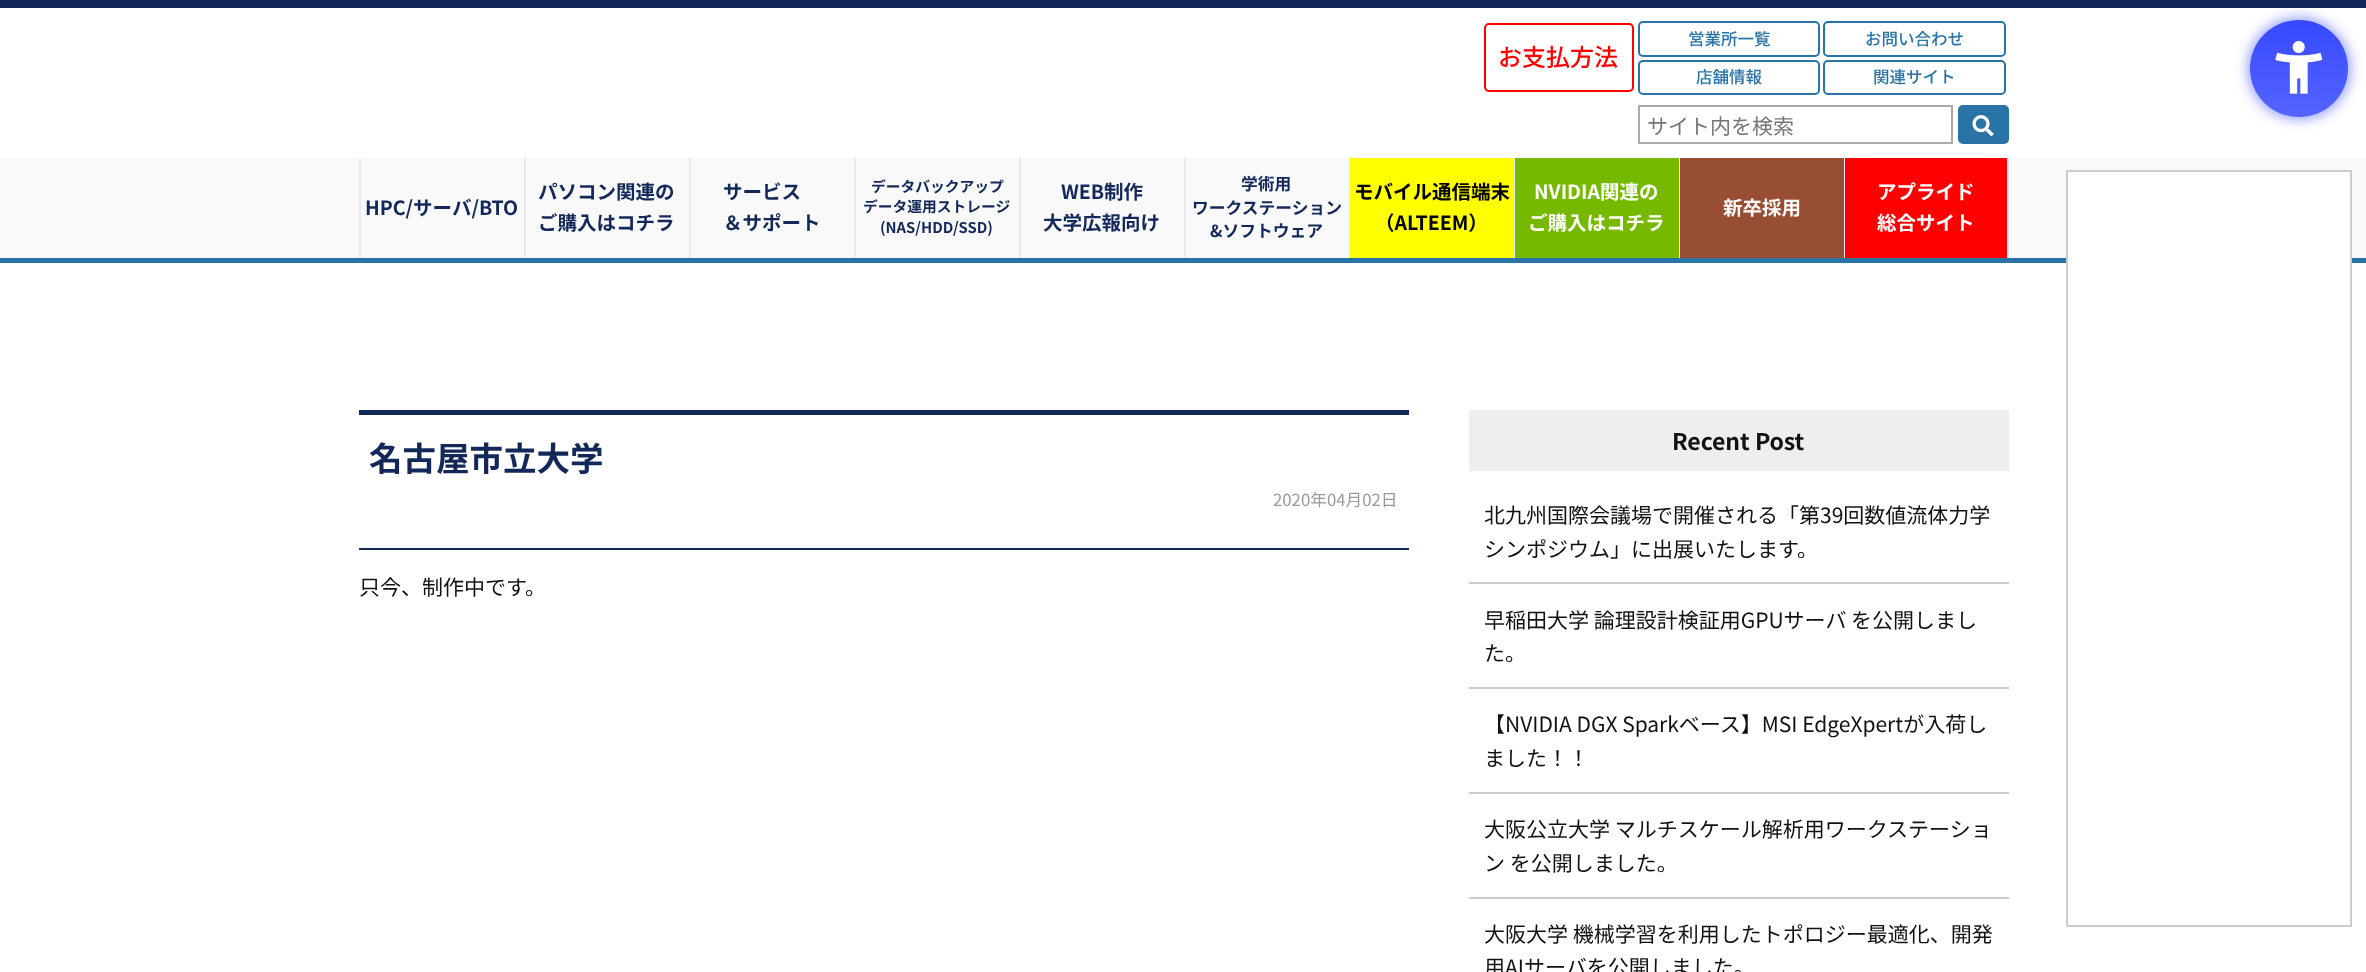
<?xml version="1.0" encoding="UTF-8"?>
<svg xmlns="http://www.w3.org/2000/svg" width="2366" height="972">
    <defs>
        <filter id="blur1" x="-50%" y="-200%" width="200%" height="500%"><feGaussianBlur stdDeviation="6"/></filter>
        <linearGradient id="g1" gradientUnits="userSpaceOnUse" x1="2299" y1="19" x2="2299" y2="117"><stop offset="0" stop-color="#3649FF"/><stop offset="1" stop-color="#5464FF"/></linearGradient>
    </defs>
    <rect width="100%" height="100%" fill="#FFFFFF"/>
    <rect x="0" y="0" width="2366" height="8" fill="#122858"/>
    <rect x="1485" y="24" width="148" height="67" rx="4" fill="none" stroke="#FF0000" stroke-width="2"/>
    <text x="1498" y="66" font-family="Noto Sans JP" font-size="24" font-weight="500" fill="#FF0000">お支払方法</text>
    <rect x="1639" y="22" width="180" height="34" rx="4" fill="none" stroke="#2973A6" stroke-width="2"/>
    <text x="1688" y="45" font-family="Noto Sans JP" font-size="16.5" font-weight="500" fill="#2973A6">営業所一覧</text>
    <rect x="1824" y="22" width="181" height="34" rx="4" fill="none" stroke="#2973A6" stroke-width="2"/>
    <text x="1865" y="45" font-family="Noto Sans JP" font-size="16.5" font-weight="500" fill="#2973A6">お問い合わせ</text>
    <rect x="1639" y="61" width="180" height="33" rx="4" fill="none" stroke="#2973A6" stroke-width="2"/>
    <text x="1696" y="83" font-family="Noto Sans JP" font-size="16.5" font-weight="500" fill="#2973A6">店舗情報</text>
    <rect x="1824" y="61" width="181" height="33" rx="4" fill="none" stroke="#2973A6" stroke-width="2"/>
    <text x="1873" y="83" font-family="Noto Sans JP" font-size="16.5" font-weight="500" fill="#2973A6">関連サイト</text>
    <rect x="1639" y="106" width="313" height="37" fill="none" stroke="#AAAAAA" stroke-width="2"/>
    <text x="1647" y="134" font-family="Noto Sans JP" font-size="21" fill="#757575">サイト内を検索</text>
    <rect x="1958" y="105" width="51" height="39" rx="5" fill="#2973A6"/>
    <image x="1972" y="115" width="22" height="22" href="img_01.png"/>
    <rect x="2247" y="17" width="104" height="103" rx="51.5" fill="#3649FF" fill-opacity="0.5" filter="url(#blur1)"/>
    <rect x="2250" y="20" width="98" height="97" rx="48.5" fill="url(#g1)"/>
    <image x="2275" y="41" width="48" height="53" href="img_02.png"/>
    <rect x="0" y="158" width="2366" height="100" fill="#F9F9F9"/>
    <rect x="0" y="258" width="2366" height="5" fill="#2973A6"/>
    <rect x="359" y="158" width="2" height="100" fill="#E3EBF0"/>
    <text x="365" y="215" font-family="Noto Sans JP" font-size="19.5" font-weight="700" fill="#122858">HPC/サーバ/BTO</text>
    <rect x="524" y="158" width="2" height="100" fill="#E3EBF0"/>
    <text font-family="Noto Sans JP" font-size="19.5" font-weight="700" fill="#122858">
        <tspan x="538" y="199">パソコン関連の</tspan>
        <tspan x="538" y="230">ご購入はコチラ</tspan>
    </text>
    <rect x="689" y="158" width="2" height="100" fill="#E3EBF0"/>
    <text font-family="Noto Sans JP" font-size="19.5" font-weight="700" fill="#122858">
        <tspan x="723" y="199">サービス</tspan>
        <tspan x="723" y="230">＆サポート</tspan>
    </text>
    <rect x="854" y="158" width="2" height="100" fill="#E3EBF0"/>
    <text x="871" y="192" font-family="Noto Sans JP" font-size="14.75" font-weight="700" fill="#122858">データバックアップ</text>
    <text x="863" y="212" font-family="Noto Sans JP" font-size="14.75" font-weight="700" fill="#122858">データ運用ストレージ</text>
    <text x="880" y="233" font-family="Noto Sans JP" font-size="14.75" font-weight="700" fill="#122858">(NAS/HDD/SSD)</text>
    <rect x="1019" y="158" width="2" height="100" fill="#E3EBF0"/>
    <text x="1061" y="199" font-family="Noto Sans JP" font-size="19.5" font-weight="700" fill="#122858">WEB制作</text>
    <text x="1043" y="230" font-family="Noto Sans JP" font-size="19.5" font-weight="700" fill="#122858">大学広報向け</text>
    <rect x="1184" y="158" width="2" height="100" fill="#E3EBF0"/>
    <text x="1241" y="190" font-family="Noto Sans JP" font-size="16.75" font-weight="700" fill="#122858">学術用</text>
    <text x="1192" y="214" font-family="Noto Sans JP" font-size="16.75" font-weight="700" fill="#122858">ワークステーション</text>
    <text x="1210" y="237" font-family="Noto Sans JP" font-size="16.75" font-weight="700" fill="#122858">&amp;ソフトウェア</text>
    <rect x="1349" y="158" width="1" height="100" fill="#E3EBF0"/>
    <rect x="1350" y="158" width="164" height="100" fill="#FFFF00"/>
    <text x="1354" y="199" font-family="Noto Sans JP" font-size="19.5" font-weight="700" fill="#000000">モバイル通信端末</text>
    <text x="1375" y="230" font-family="Noto Sans JP" font-size="19.5" font-weight="700" fill="#000000">（ALTEEM）</text>
    <rect x="1514" y="158" width="1" height="100" fill="#E3EBF0"/>
    <rect x="1515" y="158" width="164" height="100" fill="#76B900"/>
    <text x="1534" y="199" font-family="Noto Sans JP" font-size="19.5" font-weight="700" fill="#FFFFFF">NVIDIA関連の</text>
    <text x="1528" y="230" font-family="Noto Sans JP" font-size="19.5" font-weight="700" fill="#FFFFFF">ご購入はコチラ</text>
    <rect x="1679" y="158" width="1" height="100" fill="#E3EBF0"/>
    <rect x="1680" y="158" width="164" height="100" fill="#974E33"/>
    <text x="1723" y="215" font-family="Noto Sans JP" font-size="19.5" font-weight="700" fill="#FFFFFF">新卒採用</text>
    <rect x="2007" y="158" width="2" height="100" fill="#E3EBF0"/>
    <rect x="1844" y="158" width="1" height="100" fill="#E3EBF0"/>
    <rect x="1845" y="158" width="162" height="100" fill="#FF0000"/>
    <text font-family="Noto Sans JP" font-size="19.5" font-weight="700" fill="#FFFFFF">
        <tspan x="1877" y="199">アプライド</tspan>
        <tspan x="1877" y="230">総合サイト</tspan>
    </text>
    <rect x="2068" y="172" width="282" height="91" fill="#FFFFFF"/>
    <rect x="2067" y="171" width="284" height="755" fill="none" stroke="#CCCCCC" stroke-width="2"/>
    <rect x="359" y="410" width="1050" height="5" fill="#122858"/>
    <rect x="359" y="548" width="1050" height="2" fill="#122858"/>
    <text x="369" y="471" font-family="Noto Sans JP" font-size="33.5" font-weight="700" fill="#122858">名古屋市立大学</text>
    <text x="1273" y="506" font-family="Noto Sans JP" font-size="16.75" fill="#999999">2020年04月02日</text>
    <text x="359" y="595" font-family="Noto Sans JP" font-size="21" fill="#111111">只今、制作中です。</text>
    <rect x="1469" y="410" width="540" height="61" fill="#EEEEEE"/>
    <text x="1672" y="450" font-family="Noto Sans JP" font-size="23" font-weight="700" fill="#111111">Recent Post</text>
    <rect x="1469" y="582" width="540" height="2" fill="#CCCCCC"/>
    <text font-family="Noto Sans JP" font-size="21" fill="#111111">
        <tspan x="1484" y="523">北九州国際会議場で開催される「第39回数値流体力学</tspan>
        <tspan x="1484" y="557">シンポジウム」に出展いたします。</tspan>
    </text>
    <rect x="1469" y="687" width="540" height="2" fill="#CCCCCC"/>
    <text font-family="Noto Sans JP" font-size="21" fill="#111111">
        <tspan x="1484" y="628">早稲田大学 論理設計検証用GPUサーバ を公開しまし</tspan>
        <tspan x="1484" y="661">た。</tspan>
    </text>
    <rect x="1469" y="792" width="540" height="2" fill="#CCCCCC"/>
    <text font-family="Noto Sans JP" font-size="21" fill="#111111">
        <tspan x="1484" y="732">【NVIDIA DGX Sparkベース】MSI EdgeXpertが入荷し</tspan>
        <tspan x="1484" y="766">ました！！</tspan>
    </text>
    <rect x="1469" y="897" width="540" height="2" fill="#CCCCCC"/>
    <text font-family="Noto Sans JP" font-size="21" fill="#111111">
        <tspan x="1484" y="837">大阪公立大学 マルチスケール解析用ワークステーショ</tspan>
        <tspan x="1484" y="871">ン を公開しました。</tspan>
    </text>
    <text font-family="Noto Sans JP" font-size="21" fill="#111111">
        <tspan x="1484" y="942">大阪大学 機械学習を利用したトポロジー最適化、開発</tspan>
        <tspan x="1484" y="975">用AIサーバを公開しました。</tspan>
    </text>
</svg>
